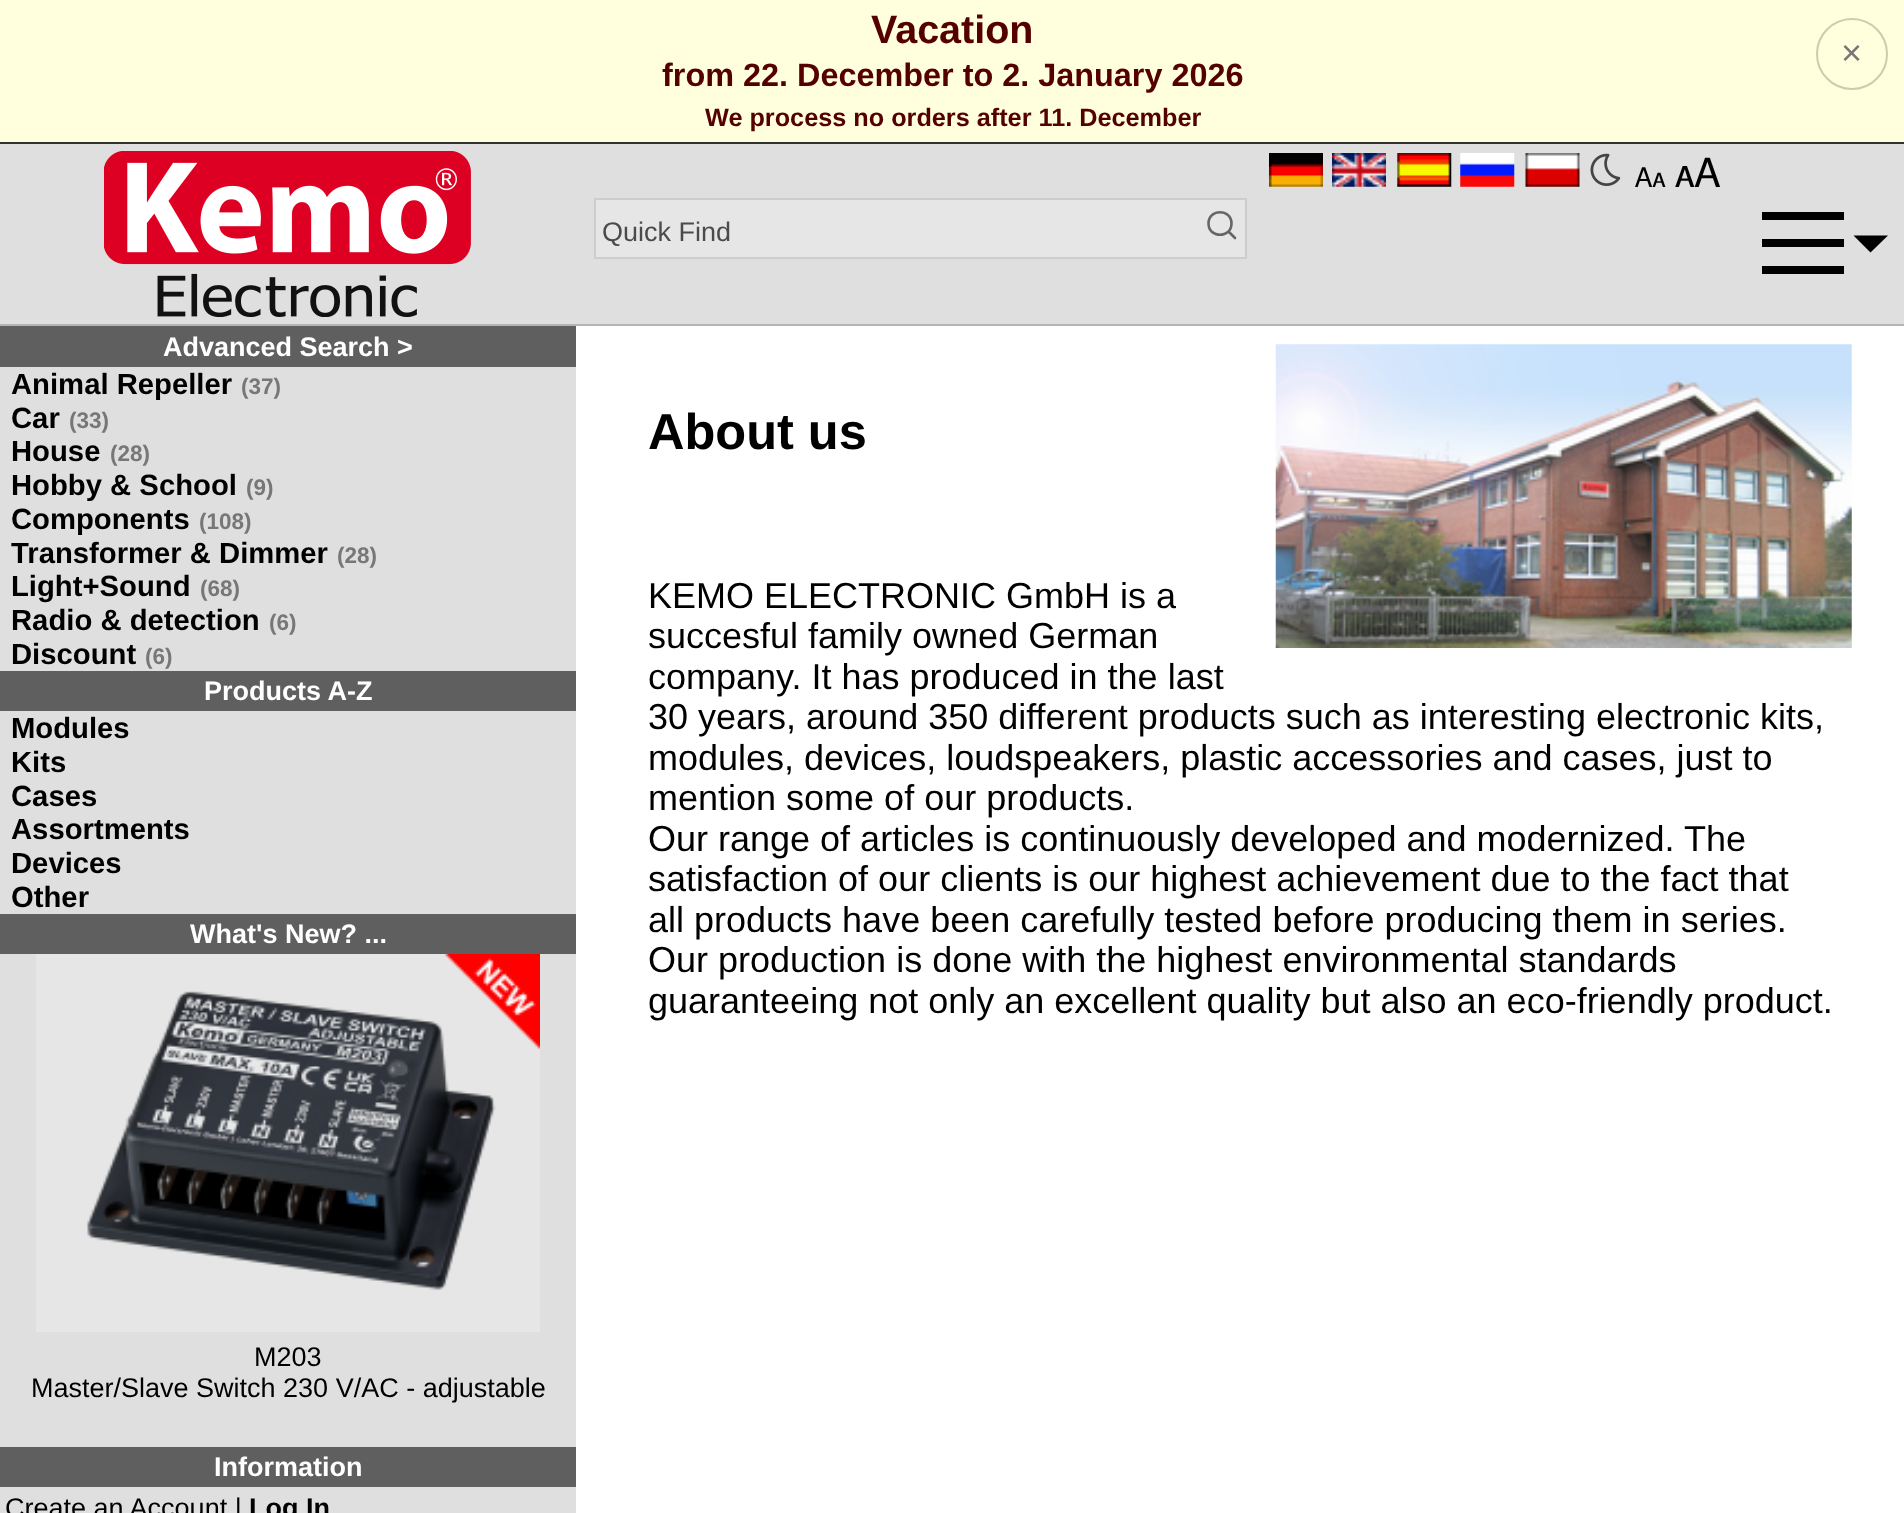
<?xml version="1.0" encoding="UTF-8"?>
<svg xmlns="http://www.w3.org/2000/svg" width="1904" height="1513">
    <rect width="100%" height="100%" fill="#DFDFDF"/>
    <rect x="0" y="0" width="1904" height="142" fill="#FFFFDD"/>
    <rect x="0" y="142" width="1904" height="2" fill="#333333"/>
    <text x="871" y="43" font-family="Liberation Sans" font-size="39.5" font-weight="700" fill="#550000">Vacation</text>
    <circle cx="1852" cy="54" r="35" fill="none" stroke="#CCCCAA" stroke-width="2"/>
    <text x="1841" y="65" font-family="Liberation Sans" font-size="36" fill="#777777">×</text>
    <text x="662" y="86" font-family="Liberation Sans" font-size="32.4" font-weight="700" fill="#550000">from 22. December to 2. January 2026</text>
    <text x="705" y="126" font-family="Liberation Sans" font-size="25.25" font-weight="700" fill="#550000">We process no orders after 11. December</text>
    <rect x="0" y="324" width="1904" height="2" fill="#B4B4B4"/>
    <image x="104" y="151" width="367" height="166" href="img_01.png"/>
    <image x="1269" y="153" width="54" height="34" href="img_02.png"/>
    <image x="1332" y="153" width="54" height="34" href="img_03.png"/>
    <image x="1397" y="153" width="55" height="34" href="img_04.png"/>
    <image x="1460" y="153" width="55" height="34" href="img_05.png"/>
    <image x="1525" y="153" width="55" height="34" href="img_06.png"/>
    <image x="1590" y="153" width="31" height="33" href="img_07.png"/>
    <text x="1635" y="187" font-family="FreeSans" font-size="27" fill="#000000">🗛</text>
    <text x="1675" y="187" font-family="FreeSans" font-size="40" fill="#000000">🗚</text>
    <rect x="595" y="199" width="651" height="59" fill="#E6E6E6" stroke="#CDCDCD" stroke-width="2"/>
    <text x="602" y="241" font-family="Liberation Sans" font-size="27" fill="#4B4B4B">Quick Find</text>
    <path d="M 1228.5 231.5 L 1235 238 M 1231.5 223.5 C 1231.5 238.5 1208.5 238.5 1208.5 223.5 C 1208.5 208.5 1231.5 208.5 1231.5 223.5 Z" fill="none" stroke="#666666" stroke-width="2.6" stroke-linecap="round" stroke-linejoin="round"/>
    <rect x="1762" y="212" width="82" height="8" fill="#000000"/>
    <rect x="1762" y="239" width="82" height="8" fill="#000000"/>
    <path d="M 1853.5 235.5 L 1870.5 252.5 L 1888 235.5 Z" fill="#000000"/>
    <rect x="1762" y="266" width="82" height="8" fill="#000000"/>
    <rect x="0" y="326" width="576" height="41" fill="#5F5F5F"/>
    <text x="163" y="356" font-family="Liberation Sans" font-size="27" font-weight="700" fill="#FFFFFF">Advanced Search &gt;</text>
    <text x="11" y="394" font-family="Liberation Sans" font-size="29.25" font-weight="700" fill="#000000">Animal Repeller</text>
    <text x="241" y="394" font-family="Liberation Sans" font-size="22.5" font-weight="700" fill="#777777">(37)</text>
    <text x="11" y="428" font-family="Liberation Sans" font-size="29.25" font-weight="700" fill="#000000">Car</text>
    <text x="69" y="428" font-family="Liberation Sans" font-size="22.5" font-weight="700" fill="#777777">(33)</text>
    <text x="11" y="461" font-family="Liberation Sans" font-size="29.25" font-weight="700" fill="#000000">House</text>
    <text x="110" y="461" font-family="Liberation Sans" font-size="22.5" font-weight="700" fill="#777777">(28)</text>
    <text x="11" y="495" font-family="Liberation Sans" font-size="29.25" font-weight="700" fill="#000000">Hobby &amp; School</text>
    <text x="246" y="495" font-family="Liberation Sans" font-size="22.5" font-weight="700" fill="#777777">(9)</text>
    <text x="11" y="529" font-family="Liberation Sans" font-size="29.25" font-weight="700" fill="#000000">Components</text>
    <text x="199" y="529" font-family="Liberation Sans" font-size="22.5" font-weight="700" fill="#777777">(108)</text>
    <text x="11" y="563" font-family="Liberation Sans" font-size="29.25" font-weight="700" fill="#000000">Transformer &amp; Dimmer</text>
    <text x="337" y="563" font-family="Liberation Sans" font-size="22.5" font-weight="700" fill="#777777">(28)</text>
    <text x="11" y="596" font-family="Liberation Sans" font-size="29.25" font-weight="700" fill="#000000">Light+Sound</text>
    <text x="200" y="596" font-family="Liberation Sans" font-size="22.5" font-weight="700" fill="#777777">(68)</text>
    <text x="11" y="630" font-family="Liberation Sans" font-size="29.25" font-weight="700" fill="#000000">Radio &amp; detection</text>
    <text x="269" y="630" font-family="Liberation Sans" font-size="22.5" font-weight="700" fill="#777777">(6)</text>
    <text x="11" y="664" font-family="Liberation Sans" font-size="29.25" font-weight="700" fill="#000000">Discount</text>
    <text x="145" y="664" font-family="Liberation Sans" font-size="22.5" font-weight="700" fill="#777777">(6)</text>
    <rect x="0" y="671" width="576" height="40" fill="#5F5F5F"/>
    <text x="204" y="700" font-family="Liberation Sans" font-size="27" font-weight="700" fill="#FFFFFF">Products A-Z</text>
    <text font-family="Liberation Sans" font-size="29.25" font-weight="700" fill="#000000">
        <tspan x="11" y="738">Modules</tspan>
        <tspan x="11" y="772">Kits</tspan>
        <tspan x="11" y="806">Cases</tspan>
        <tspan x="11" y="839">Assortments</tspan>
        <tspan x="11" y="873">Devices</tspan>
        <tspan x="11" y="907">Other</tspan>
    </text>
    <rect x="0" y="914" width="576" height="40" fill="#5F5F5F"/>
    <text x="190" y="943" font-family="Liberation Sans" font-size="27" font-weight="700" fill="#FFFFFF">What's New? ...</text>
    <rect x="36" y="954" width="504" height="378" fill="#E6E6E6"/>
    <image x="87" y="954" width="453" height="336" href="img_08.png"/>
    <text x="254" y="1366" font-family="Liberation Sans" font-size="27" fill="#000000">M203</text>
    <text x="31" y="1397" font-family="Liberation Sans" font-size="27" fill="#000000">Master/Slave Switch 230 V/AC - adjustable</text>
    <rect x="0" y="1447" width="576" height="40" fill="#5F5F5F"/>
    <text x="214" y="1476" font-family="Liberation Sans" font-size="27" font-weight="700" fill="#FFFFFF">Information</text>
    <text x="5" y="1517" font-family="Liberation Sans" font-size="27" fill="#000000">Create an Account |</text>
    <text x="249" y="1517" font-family="Liberation Sans" font-size="27" font-weight="700" fill="#000000">Log In</text>
    <rect x="576" y="326" width="1328" height="1187" fill="#FFFFFF"/>
    <text x="648" y="449" font-family="Liberation Sans" font-size="50.5" font-weight="700" fill="#000000">About us</text>
    <image x="1275" y="344" width="577" height="304" href="img_09.png"/>
    <text font-family="Liberation Sans" font-size="36" fill="#000000">
        <tspan x="648" y="608">KEMO ELECTRONIC GmbH is a</tspan>
        <tspan x="648" y="648">succesful family owned German</tspan>
        <tspan x="648" y="689">company. It has produced in the last</tspan>
        <tspan x="648" y="729">30 years, around 350 different products such as interesting electronic kits,</tspan>
        <tspan x="648" y="770">modules, devices, loudspeakers, plastic accessories and cases, just to</tspan>
        <tspan x="648" y="810">mention some of our products.</tspan>
        <tspan x="648" y="851">Our range of articles is continuously developed and modernized. The</tspan>
        <tspan x="648" y="891">satisfaction of our clients is our highest achievement due to the fact that</tspan>
        <tspan x="648" y="932">all products have been carefully tested before producing them in series.</tspan>
        <tspan x="648" y="972">Our production is done with the highest environmental standards</tspan>
        <tspan x="648" y="1013">guaranteeing not only an excellent quality but also an eco-friendly product.</tspan>
    </text>
</svg>
